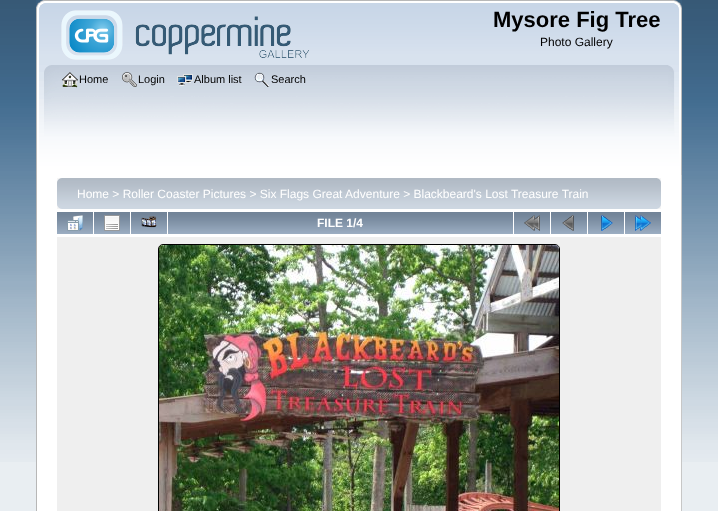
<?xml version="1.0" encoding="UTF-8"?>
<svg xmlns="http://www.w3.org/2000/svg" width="718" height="511">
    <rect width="100%" height="100%" fill="#E9EEF2"/>
    <image x="0" y="0" width="718" height="462" href="img_01.png"/>
    <image x="36" y="0" width="638" height="65" href="img_02.png"/>
    <image x="674" y="0" width="8" height="65" href="img_03.png"/>
    <image x="61" y="10" width="248" height="50" href="img_04.png"/>
    <text x="493" y="27" font-family="Liberation Sans" font-size="22" font-weight="700" fill="#000000">Mysore Fig Tree</text>
    <text x="540" y="46" font-family="Liberation Sans" font-size="12" fill="#000000">Photo Gallery</text>
    <image x="36" y="65" width="632" height="110" href="img_05.png"/>
    <image x="668" y="65" width="14" height="110" href="img_06.png"/>
    <image x="62" y="72" width="16" height="16" href="img_07.png"/>
    <text x="79" y="83" font-family="Liberation Sans" font-size="11" fill="#000000">Home</text>
    <image x="122" y="72" width="15" height="15" href="img_08.png"/>
    <text x="138" y="83" font-family="Liberation Sans" font-size="11" fill="#000000">Login</text>
    <image x="177" y="74" width="16" height="12" href="img_09.png"/>
    <text x="194" y="83" font-family="Liberation Sans" font-size="11" fill="#000000">Album list</text>
    <image x="254" y="72" width="16" height="15" href="img_10.png"/>
    <text x="271" y="83" font-family="Liberation Sans" font-size="11" fill="#000000">Search</text>
    <rect x="37" y="175" width="644" height="336" fill="#FFFFFF"/>
    <rect x="36" y="175" width="1" height="336" fill="#B7B7B7"/>
    <rect x="681" y="175" width="1" height="336" fill="#C7C7C7"/>
    <image x="57" y="178" width="600" height="31" href="img_11.png"/>
    <image x="657" y="178" width="4" height="31" href="img_12.png"/>
    <text x="77" y="198" font-family="Liberation Sans" font-size="12" fill="#FFFFFF">Home &gt; Roller Coaster Pictures &gt; Six Flags Great Adventure &gt; Blackbeard's Lost Treasure Train</text>
    <image x="57" y="212" width="36" height="22" href="img_13.png"/>
    <image x="67" y="215" width="16" height="16" href="img_14.png"/>
    <image x="94" y="212" width="36" height="22" href="img_13.png"/>
    <image x="104" y="215" width="16" height="16" href="img_15.png"/>
    <image x="131" y="212" width="36" height="22" href="img_13.png"/>
    <image x="141" y="216" width="16" height="12" href="img_16.png"/>
    <image x="168" y="212" width="345" height="22" href="img_17.png"/>
    <text x="317" y="227" font-family="Liberation Sans" font-size="12" font-weight="700" fill="#FFFFFF">FILE 1/4</text>
    <image x="514" y="212" width="36" height="22" href="img_13.png"/>
    <image x="524" y="215" width="16" height="16" href="img_18.png"/>
    <image x="551" y="212" width="36" height="22" href="img_13.png"/>
    <image x="562" y="215" width="12" height="16" href="img_19.png"/>
    <image x="588" y="212" width="36" height="22" href="img_13.png"/>
    <image x="601" y="215" width="12" height="16" href="img_20.png"/>
    <image x="625" y="212" width="36" height="22" href="img_13.png"/>
    <image x="635" y="215" width="16" height="16" href="img_21.png"/>
    <rect x="57" y="237" width="604" height="274" fill="#EFEFEF"/>
    <rect x="158.5" y="244.5" width="401" height="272" rx="4.5" fill="none" stroke="#000000"/>
    <image x="159" y="245" width="400" height="266" href="img_22.png"/>
</svg>
